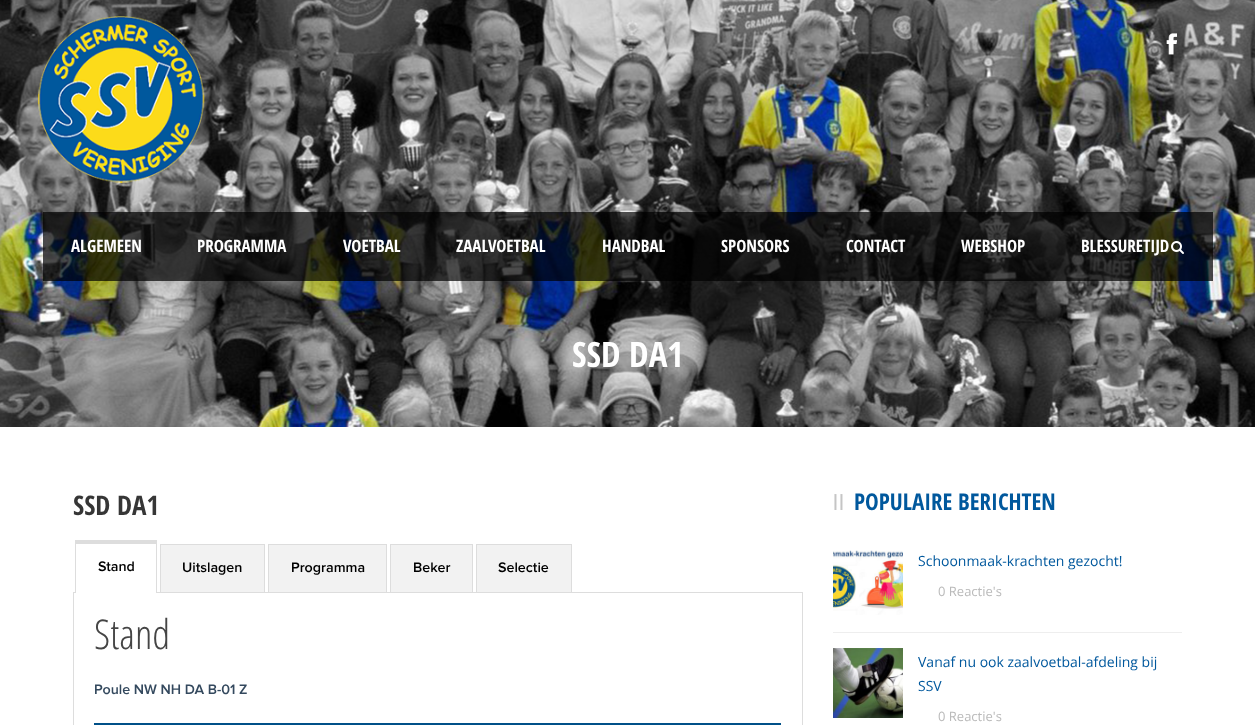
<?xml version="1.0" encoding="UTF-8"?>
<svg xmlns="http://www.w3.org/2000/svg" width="1255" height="725">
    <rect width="100%" height="100%" fill="#FFFFFF"/>
    <image x="0" y="0" width="1255" height="427" href="img_01.png"/>
    <image x="1166" y="33" width="11" height="22" href="img_02.png"/>
    <image x="37" y="16" width="168" height="168" href="img_03.png"/>
    <rect x="43" y="212" width="1170" height="69" fill="#000000" fill-opacity="0.7"/>
    <text x="71" y="252" font-family="Open Sans Condensed" font-size="17" font-weight="700" fill="#FFFFFF">ALGEMEEN</text>
    <text x="197" y="252" font-family="Open Sans Condensed" font-size="17" font-weight="700" fill="#FFFFFF">PROGRAMMA</text>
    <text x="343" y="252" font-family="Open Sans Condensed" font-size="17" font-weight="700" fill="#FFFFFF">VOETBAL</text>
    <text x="456" y="252" font-family="Open Sans Condensed" font-size="17" font-weight="700" fill="#FFFFFF">ZAALVOETBAL</text>
    <text x="602" y="252" font-family="Open Sans Condensed" font-size="17" font-weight="700" fill="#FFFFFF">HANDBAL</text>
    <text x="721" y="252" font-family="Open Sans Condensed" font-size="17" font-weight="700" fill="#FFFFFF">SPONSORS</text>
    <text x="846" y="252" font-family="Open Sans Condensed" font-size="17" font-weight="700" fill="#FFFFFF">CONTACT</text>
    <text x="961" y="252" font-family="Open Sans Condensed" font-size="17" font-weight="700" fill="#FFFFFF">WEBSHOP</text>
    <text x="1081" y="252" font-family="Open Sans Condensed" font-size="17" font-weight="700" fill="#FFFFFF">BLESSURETIJD</text>
    <image x="1171" y="241" width="13" height="13" href="img_04.png"/>
    <text x="572" y="367" font-family="Open Sans Condensed" font-size="35" font-weight="700" fill="#FFFFFF">SSD DA1</text>
    <text x="73" y="515" font-family="Open Sans Condensed" font-size="27" font-weight="700" fill="#363636">SSD DA1</text>
    <rect x="73.5" y="592.5" width="729" height="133" fill="none" stroke="#DDDDDD"/>
    <rect x="76" y="592" width="80" height="1" fill="#FFFFFF"/>
    <rect x="75" y="540" width="82" height="4" fill="#DDDDDD"/>
    <rect x="156" y="540" width="1" height="53" fill="#DDDDDD"/>
    <rect x="75" y="540" width="1" height="53" fill="#DDDDDD"/>
    <text x="98" y="571" font-family="Proxima Nova" font-size="14.25" font-weight="600" fill="#000000">Stand</text>
    <rect x="161" y="545" width="103" height="47" fill="#F2F2F2"/>
    <rect x="160" y="544" width="105" height="1" fill="#DDDDDD"/>
    <rect x="264" y="544" width="1" height="48" fill="#DDDDDD"/>
    <rect x="160" y="544" width="1" height="48" fill="#DDDDDD"/>
    <text x="182" y="572" font-family="Proxima Nova" font-size="14.25" font-weight="600" fill="#000000">Uitslagen</text>
    <rect x="269" y="545" width="117" height="47" fill="#F2F2F2"/>
    <rect x="268" y="544" width="119" height="1" fill="#DDDDDD"/>
    <rect x="386" y="544" width="1" height="48" fill="#DDDDDD"/>
    <rect x="268" y="544" width="1" height="48" fill="#DDDDDD"/>
    <text x="291" y="572" font-family="Proxima Nova" font-size="14.25" font-weight="600" fill="#000000">Programma</text>
    <rect x="391" y="545" width="81" height="47" fill="#F2F2F2"/>
    <rect x="390" y="544" width="83" height="1" fill="#DDDDDD"/>
    <rect x="472" y="544" width="1" height="48" fill="#DDDDDD"/>
    <rect x="390" y="544" width="1" height="48" fill="#DDDDDD"/>
    <text x="413" y="572" font-family="Proxima Nova" font-size="14.25" font-weight="600" fill="#000000">Beker</text>
    <rect x="477" y="545" width="94" height="47" fill="#F2F2F2"/>
    <rect x="476" y="544" width="96" height="1" fill="#DDDDDD"/>
    <rect x="571" y="544" width="1" height="48" fill="#DDDDDD"/>
    <rect x="476" y="544" width="1" height="48" fill="#DDDDDD"/>
    <text x="498" y="572" font-family="Proxima Nova" font-size="14.25" font-weight="600" fill="#000000">Selectie</text>
    <text x="94" y="649" font-family="Open Sans Condensed" font-size="41" font-weight="300" fill="#454545">Stand</text>
    <text x="94" y="694" font-family="Proxima Nova" font-size="14.25" font-weight="600" fill="#34495E">Poule NW NH DA B-01 Z</text>
    <rect x="94" y="723" width="687" height="2" fill="#005088"/>
    <text x="833" y="510" font-family="Liberation Sans" font-size="22" letter-spacing="1" fill="#C5C5C5">ll</text>
    <text x="854" y="510" font-family="Open Sans Condensed" font-size="23" font-weight="700" fill="#00589D">POPULAIRE BERICHTEN</text>
    <rect x="833" y="632" width="349" height="1" fill="#EEEEEE"/>
    <image x="833" y="550" width="70" height="65" href="img_05.png"/>
    <text x="918" y="566" font-family="Open Sans" font-size="14" fill="#00589D">Schoonmaak-krachten gezocht!</text>
    <text x="938" y="596" font-family="Open Sans" font-size="13" fill="#BABABA">0 Reactie's</text>
    <image x="833" y="648" width="70" height="70" href="img_06.png"/>
    <text font-family="Open Sans" font-size="14" fill="#00589D">
        <tspan x="918" y="667">Vanaf nu ook zaalvoetbal-afdeling bij</tspan>
        <tspan x="918" y="691">SSV</tspan>
    </text>
    <text x="938" y="721" font-family="Open Sans" font-size="13" fill="#BABABA">0 Reactie's</text>
</svg>
